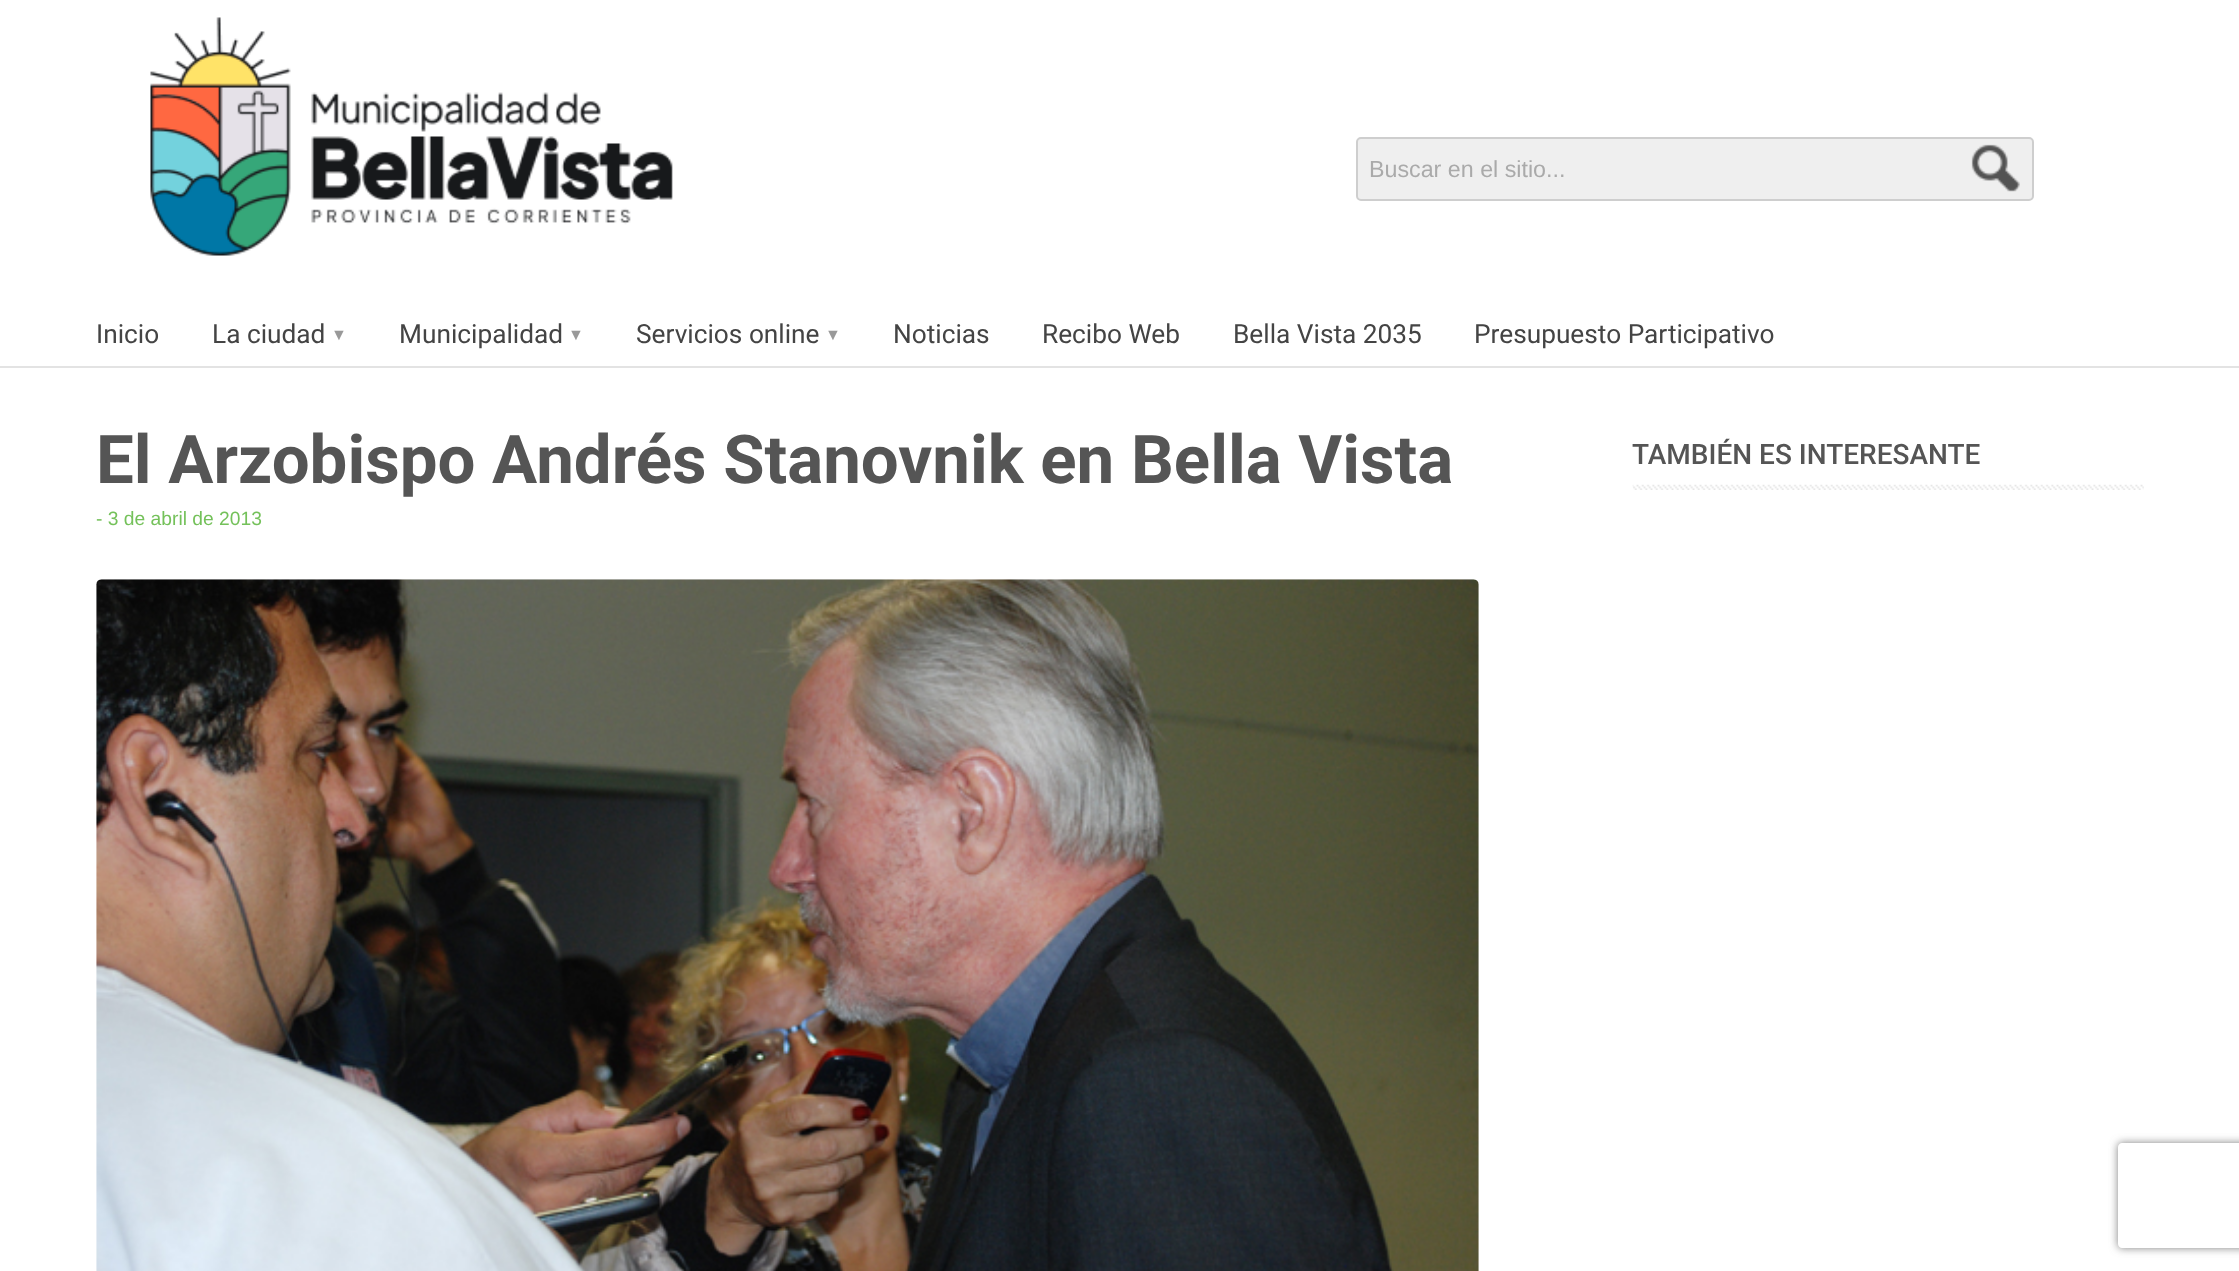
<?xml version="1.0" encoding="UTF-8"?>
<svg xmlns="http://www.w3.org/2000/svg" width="2239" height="1271">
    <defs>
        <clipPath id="clip1"><path d="M 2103 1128 H 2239 V 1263 H 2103 Z M 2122 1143 H 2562 C 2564 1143 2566 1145 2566 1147 V 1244 C 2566 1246 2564 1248 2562 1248 H 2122 C 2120 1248 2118 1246 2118 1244 V 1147 C 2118 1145 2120 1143 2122 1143 Z" clip-rule="evenodd"/></clipPath>
        <filter id="blur1" x="-50%" y="-200%" width="200%" height="500%"><feGaussianBlur stdDeviation="4.5"/></filter>
    </defs>
    <rect width="100%" height="100%" fill="#FFFFFF"/>
    <image x="150" y="17" width="523" height="239" href="img_01.png"/>
    <rect x="1357" y="138" width="676" height="62" rx="4" fill="#EFEFEF" stroke="#CECECE" stroke-width="2"/>
    <text x="1369" y="177" font-family="Liberation Sans" font-size="23.25" fill="#AAAAAA">Buscar en el sitio...</text>
    <image x="1971" y="144" width="49" height="48" href="img_02.png"/>
    <rect x="0" y="366" width="2239" height="2" fill="#E3E3E3"/>
    <text x="96" y="343" font-family="Roboto" font-size="26.25" fill="#444444">Inicio</text>
    <text x="212" y="343" font-family="Roboto" font-size="26.25" fill="#444444">La ciudad</text>
    <text x="331" y="340" font-family="Liberation Sans" font-size="16" fill="#999999">▼</text>
    <text x="399" y="343" font-family="Roboto" font-size="26.25" fill="#444444">Municipalidad</text>
    <text x="568" y="340" font-family="Liberation Sans" font-size="16" fill="#999999">▼</text>
    <text x="636" y="343" font-family="Roboto" font-size="26.25" fill="#444444">Servicios online</text>
    <text x="825" y="340" font-family="Liberation Sans" font-size="16" fill="#999999">▼</text>
    <text x="893" y="343" font-family="Roboto" font-size="26.25" fill="#444444">Noticias</text>
    <text x="1042" y="343" font-family="Roboto" font-size="26.25" fill="#444444">Recibo Web</text>
    <text x="1233" y="343" font-family="Roboto" font-size="26.25" fill="#444444">Bella Vista 2035</text>
    <text x="1474" y="343" font-family="Roboto" font-size="26.25" fill="#444444">Presupuesto Participativo</text>
    <text x="96" y="483" font-family="Roboto" font-size="67.2" font-weight="700" fill="#555555">El Arzobispo Andrés Stanovnik en Bella Vista</text>
    <text x="96" y="525" font-family="Liberation Sans" font-size="19.25" fill="#74C15A">- 3 de abril de 2013</text>
    <image x="96" y="579" width="1383" height="692" href="img_03.png"/>
    <image x="1632" y="484" width="512" height="6" href="img_04.png"/>
    <text x="1632" y="464" font-family="Roboto" font-size="28" font-weight="500" fill="#555555">TAMBIÉN ES INTERESANTE</text>
    <g clip-path="url(#clip1)">
        <rect x="2118" y="1143" width="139" height="105" rx="4" fill="#808080" filter="url(#blur1)"/>
    </g>
</svg>
